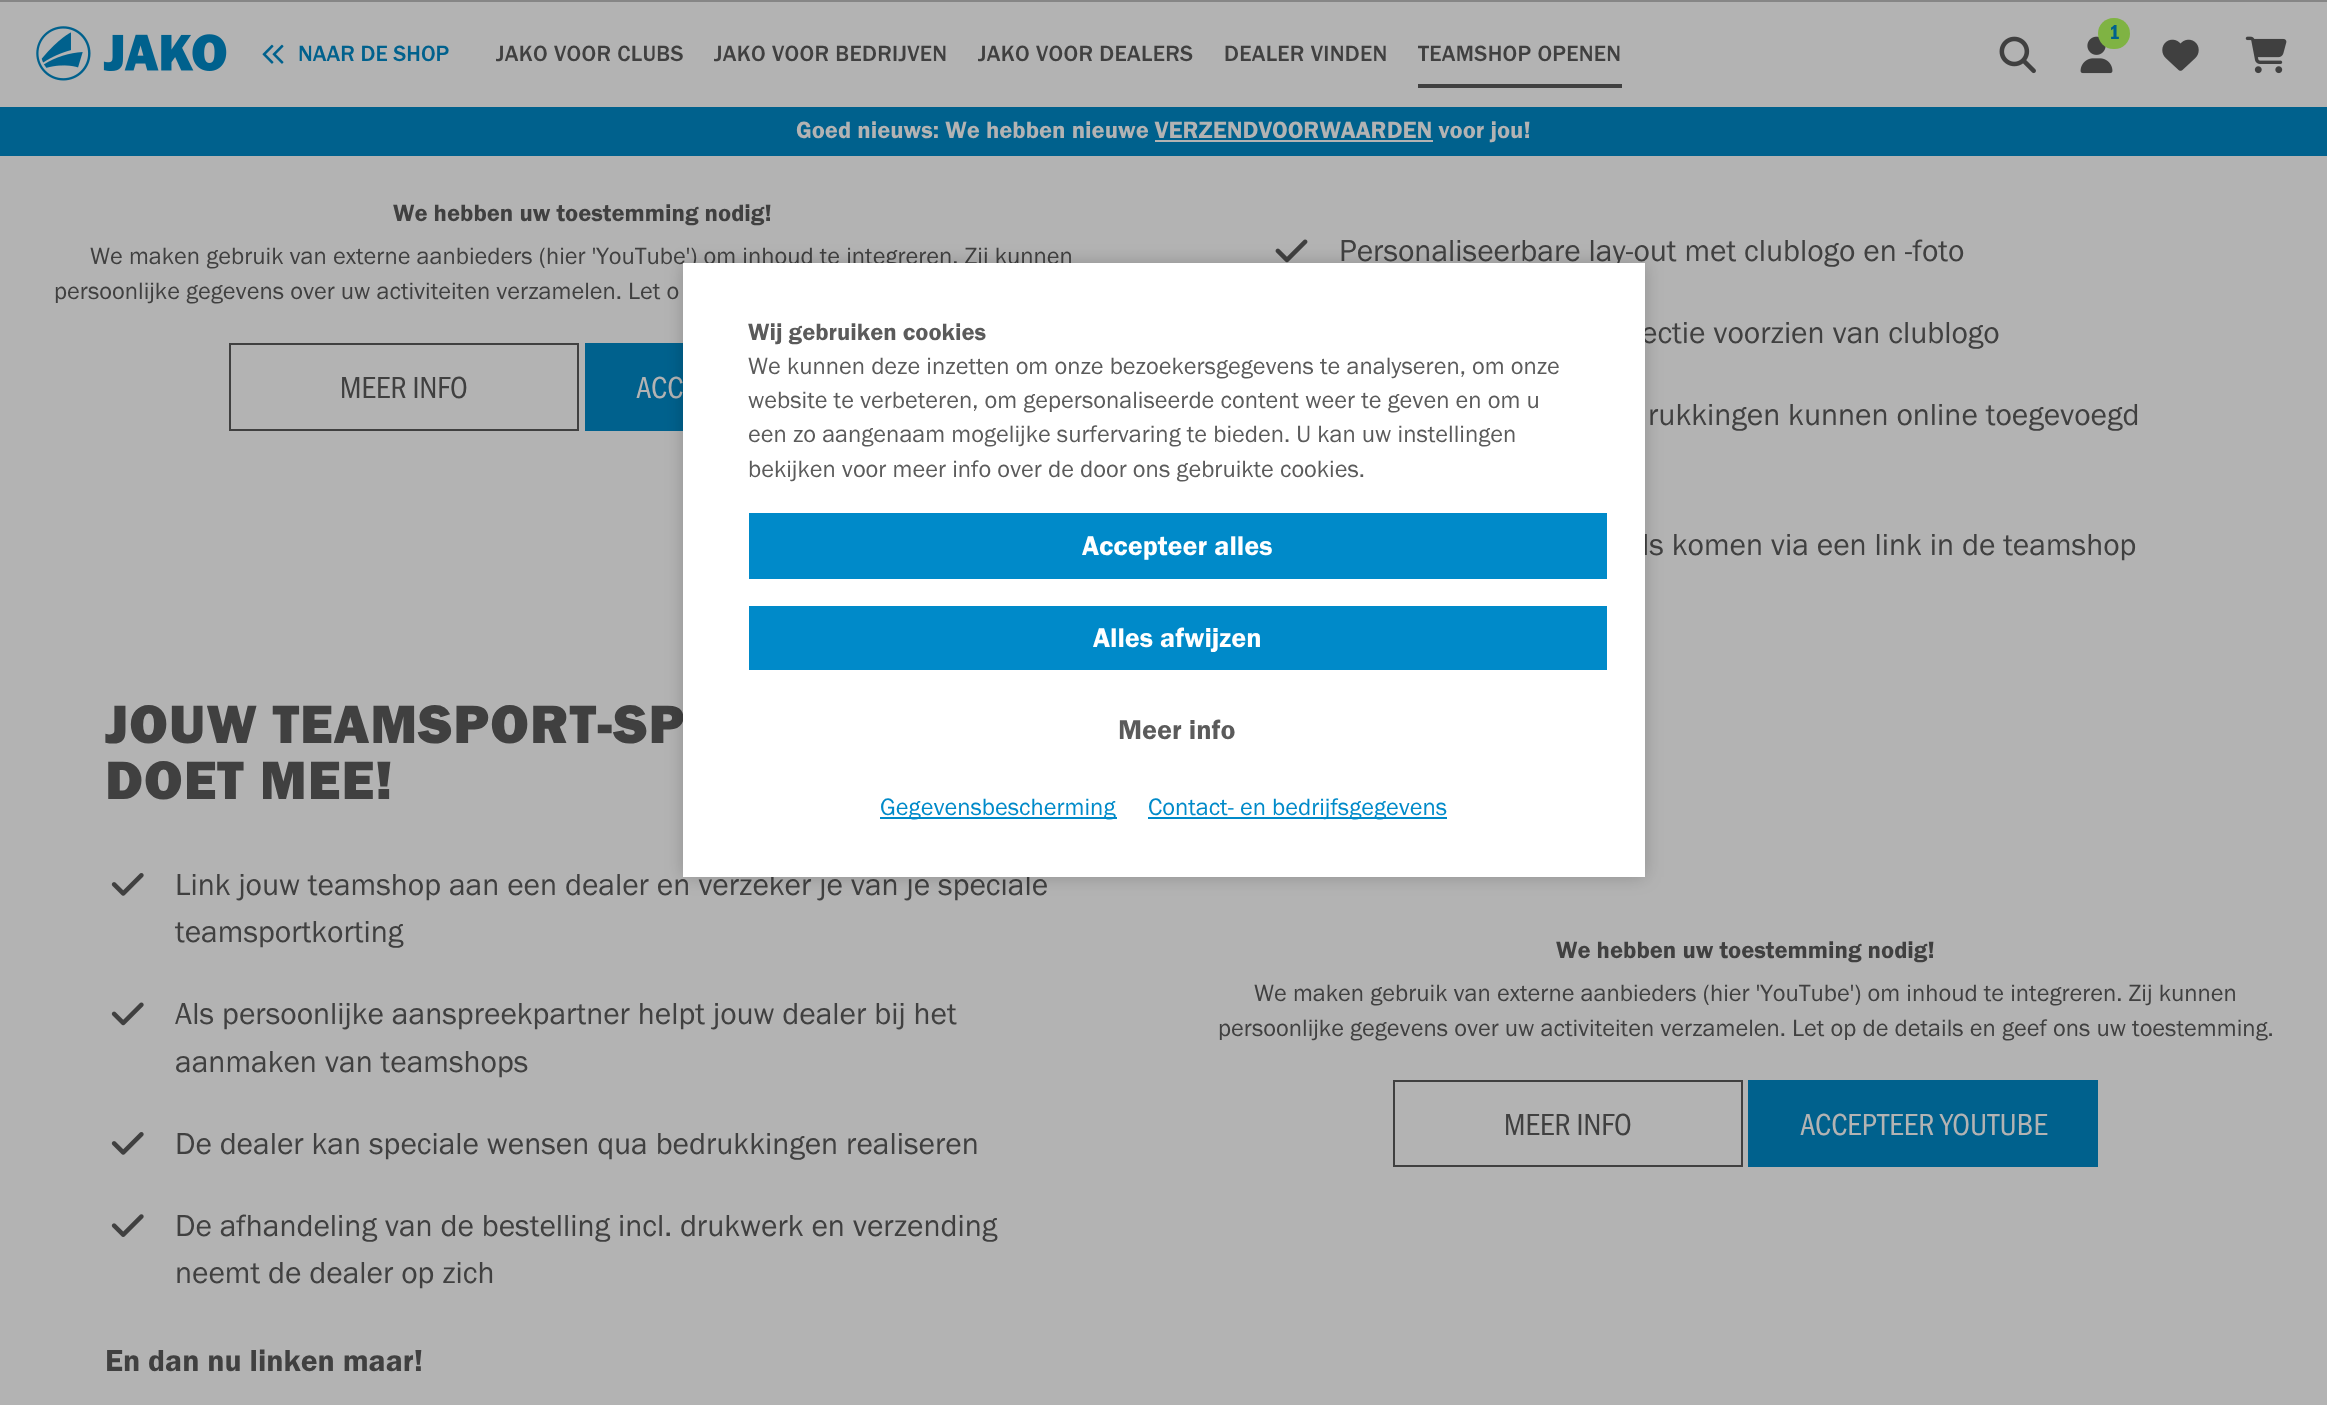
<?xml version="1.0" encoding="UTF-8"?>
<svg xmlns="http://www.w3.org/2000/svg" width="2327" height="1405">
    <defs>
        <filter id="blur1" x="-50%" y="-200%" width="200%" height="500%"><feGaussianBlur stdDeviation="9"/></filter>
    </defs>
    <rect width="100%" height="100%" fill="#B3B3B3"/>
    <rect x="0" y="0" width="2327" height="2" fill="#868686"/>
    <image x="2080" y="36" width="33" height="38" href="img_01.png"/>
    <rect x="2098" y="18" width="32" height="31" rx="15.5" fill="#7FB343"/>
    <text x="2109" y="39" font-family="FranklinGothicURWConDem" font-size="21" fill="#00618D">1</text>
    <image x="2162" y="39" width="37" height="32" href="img_02.png"/>
    <image x="2245" y="36" width="42" height="38" href="img_03.png"/>
    <image x="36" y="26" width="191" height="55" href="img_04.png"/>
    <image x="262" y="44" width="22" height="20" href="img_05.png"/>
    <text x="298" y="61" font-family="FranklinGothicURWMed" font-size="22.75" fill="#00618D">NAAR DE SHOP</text>
    <text x="496" y="61" font-family="FranklinGothicURWMed" font-size="22.75" letter-spacing="0.3" fill="#404040">JAKO VOOR CLUBS</text>
    <text x="714" y="61" font-family="FranklinGothicURWMed" font-size="22.75" letter-spacing="0.3" fill="#404040">JAKO VOOR BEDRIJVEN</text>
    <text x="978" y="61" font-family="FranklinGothicURWMed" font-size="22.75" letter-spacing="0.3" fill="#404040">JAKO VOOR DEALERS</text>
    <text x="1224" y="61" font-family="FranklinGothicURWMed" font-size="22.75" letter-spacing="0.3" fill="#404040">DEALER VINDEN</text>
    <text x="1418" y="61" font-family="FranklinGothicURWMed" font-size="22.75" letter-spacing="0.3" fill="#404040">TEAMSHOP OPENEN</text>
    <rect x="1418" y="84" width="204" height="4" fill="#404040"/>
    <image x="1999" y="36" width="37" height="38" href="img_06.png"/>
    <rect x="0" y="107" width="2327" height="49" fill="#00618D"/>
    <text x="796" y="138" font-family="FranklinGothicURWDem" font-size="24.5" fill="#B3B3B3">Goed nieuws: We hebben nieuwe VERZENDVOORWAARDEN voor jou!</text>
    <rect x="1155" y="140" width="278" height="2" fill="#B3B3B3"/>
    <text x="393" y="221" font-family="FranklinGothicURWDem" font-size="24.5" fill="#404040">We hebben uw toestemming nodig!</text>
    <text x="90" y="264" font-family="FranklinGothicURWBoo" font-size="24.5" fill="#404040">We maken gebruik van externe aanbieders (hier 'YouTube') om inhoud te integreren. Zij kunnen</text>
    <text x="54" y="299" font-family="FranklinGothicURWBoo" font-size="24.5" fill="#404040">persoonlijke gegevens over uw activiteiten verzamelen. Let o</text>
    <rect x="230" y="344" width="348" height="86" fill="none" stroke="#404040" stroke-width="2"/>
    <text x="340" y="398" font-family="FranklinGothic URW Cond" font-size="31.5" fill="#404040">MEER INFO</text>
    <rect x="585" y="343" width="98" height="88" fill="#00618D"/>
    <text x="636" y="398" font-family="FranklinGothic URW Cond" font-size="31.5" fill="#B3B3B3">ACC</text>
    <image x="1275" y="239" width="33" height="24" href="img_07.png"/>
    <text x="1339" y="261" font-family="FranklinGothicURWBoo" font-size="31.5" fill="#404040">Personaliseerbare lay-out met clublogo en -foto</text>
    <text x="1641" y="343" font-family="FranklinGothicURWBoo" font-size="31.5" fill="#404040">ectie voorzien van clublogo</text>
    <text x="1648" y="425" font-family="FranklinGothicURWBoo" font-size="31.5" fill="#404040">rukkingen kunnen online toegevoegd</text>
    <text x="1642" y="555" font-family="FranklinGothicURWBoo" font-size="31.5" fill="#404040">ls komen via een link in de teamshop</text>
    <text font-family="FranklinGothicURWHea" font-size="56" font-weight="900" letter-spacing="1" fill="#404040">
        <tspan x="105" y="743">JOUW TEAMSPORT-SP</tspan>
        <tspan x="105" y="799">DOET MEE!</tspan>
    </text>
    <image x="111" y="873" width="33" height="23" href="img_08.png"/>
    <text font-family="FranklinGothicURWBoo" font-size="31.5" fill="#404040">
        <tspan x="175" y="895">Link jouw teamshop aan een dealer en verzeker je van je speciale</tspan>
        <tspan x="175" y="942">teamsportkorting</tspan>
    </text>
    <image x="111" y="1002" width="33" height="24" href="img_09.png"/>
    <text font-family="FranklinGothicURWBoo" font-size="31.5" fill="#404040">
        <tspan x="175" y="1024">Als persoonlijke aanspreekpartner helpt jouw dealer bij het</tspan>
        <tspan x="175" y="1072">aanmaken van teamshops</tspan>
    </text>
    <image x="111" y="1132" width="33" height="23" href="img_08.png"/>
    <text x="175" y="1154" font-family="FranklinGothicURWBoo" font-size="31.5" fill="#404040">De dealer kan speciale wensen qua bedrukkingen realiseren</text>
    <image x="111" y="1214" width="33" height="23" href="img_10.png"/>
    <text font-family="FranklinGothicURWBoo" font-size="31.5" fill="#404040">
        <tspan x="175" y="1236">De afhandeling van de bestelling incl. drukwerk en verzending</tspan>
        <tspan x="175" y="1283">neemt de dealer op zich</tspan>
    </text>
    <text x="105" y="1371" font-family="FranklinGothicURWDem" font-size="31.5" fill="#404040">En dan nu linken maar!</text>
    <text x="1556" y="958" font-family="FranklinGothicURWDem" font-size="24.5" fill="#404040">We hebben uw toestemming nodig!</text>
    <text x="1254" y="1001" font-family="FranklinGothicURWBoo" font-size="24.5" fill="#404040">We maken gebruik van externe aanbieders (hier 'YouTube') om inhoud te integreren. Zij kunnen</text>
    <text x="1218" y="1036" font-family="FranklinGothicURWBoo" font-size="24.5" fill="#404040">persoonlijke gegevens over uw activiteiten verzamelen. Let op de details en geef ons uw toestemming.</text>
    <rect x="1394" y="1081" width="348" height="85" fill="none" stroke="#404040" stroke-width="2"/>
    <text x="1504" y="1135" font-family="FranklinGothic URW Cond" font-size="31.5" fill="#404040">MEER INFO</text>
    <rect x="1748" y="1080" width="350" height="87" fill="#00618D"/>
    <text x="1800" y="1135" font-family="FranklinGothic URW Cond" font-size="31.5" fill="#B3B3B3">ACCEPTEER YOUTUBE</text>
    <rect x="683" y="263" width="962" height="614" fill="#000000" fill-opacity="0.2" filter="url(#blur1)"/>
    <rect x="683" y="263" width="962" height="614" fill="#FFFFFF"/>
    <text x="748" y="340" font-family="FranklinGothicURWDem" font-size="24.5" fill="#5B5B5B">Wij gebruiken cookies</text>
    <text font-family="FranklinGothicURWBoo" font-size="24.5" fill="#5B5B5B">
        <tspan x="748" y="374">We kunnen deze inzetten om onze bezoekersgegevens te analyseren, om onze</tspan>
        <tspan x="748" y="408">website te verbeteren, om gepersonaliseerde content weer te geven en om u</tspan>
        <tspan x="748" y="442">een zo aangenaam mogelijke surfervaring te bieden. U kan uw instellingen</tspan>
        <tspan x="748" y="477">bekijken voor meer info over de door ons gebruikte cookies.</tspan>
    </text>
    <rect x="749" y="513" width="858" height="66" fill="#008AC9"/>
    <text x="1082" y="555" font-family="FranklinGothicURWDem" font-size="28" fill="#FFFFFF">Accepteer alles</text>
    <rect x="749" y="606" width="858" height="64" fill="#008AC9"/>
    <text x="1093" y="647" font-family="FranklinGothicURWDem" font-size="28" fill="#FFFFFF">Alles afwijzen</text>
    <text x="1118" y="739" font-family="FranklinGothicURWDem" font-size="28" fill="#5B5B5B">Meer info</text>
    <rect x="880" y="817" width="237" height="2" fill="#008AC9"/>
    <text x="880" y="815" font-family="FranklinGothicURWBoo" font-size="24.5" fill="#008AC9">Gegevensbescherming</text>
    <rect x="1148" y="817" width="299" height="2" fill="#008AC9"/>
    <text x="1148" y="815" font-family="FranklinGothicURWBoo" font-size="24.5" fill="#008AC9">Contact- en bedrijfsgegevens</text>
</svg>
